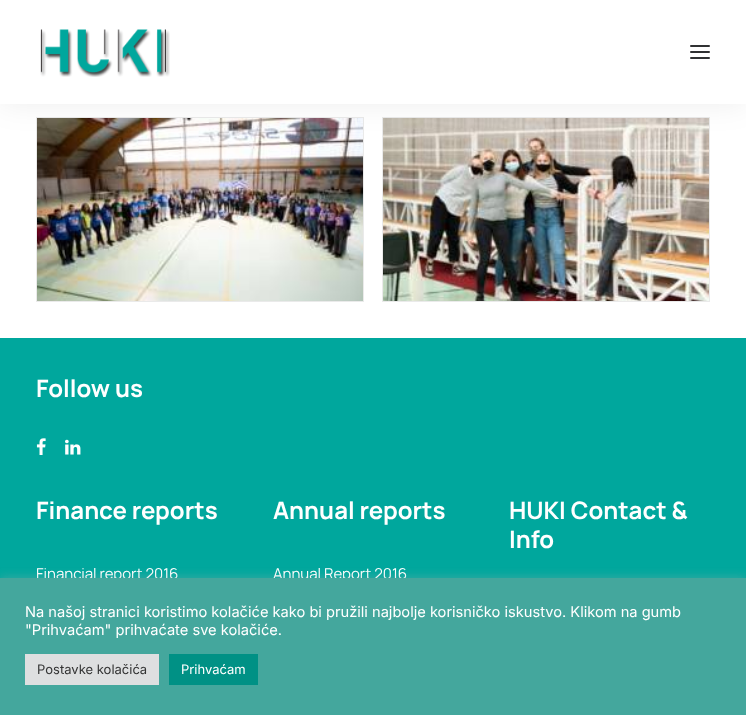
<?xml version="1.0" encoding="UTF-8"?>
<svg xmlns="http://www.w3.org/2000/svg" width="746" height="715">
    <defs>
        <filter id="blur1" x="-50%" y="-200%" width="200%" height="500%"><feGaussianBlur stdDeviation="15"/></filter>
        <filter id="blur2" x="-50%" y="-200%" width="200%" height="500%"><feGaussianBlur stdDeviation="5"/></filter>
    </defs>
    <rect width="100%" height="100%" fill="#FFFFFF"/>
    <rect x="36.5" y="117.5" width="327" height="184" fill="none" stroke="#EAEAEA"/>
    <image x="37" y="118" width="326" height="183" href="img_02.png"/>
    <rect x="382.5" y="117.5" width="327" height="184" fill="none" stroke="#EAEAEA"/>
    <image x="383" y="118" width="326" height="183" href="img_03.png"/>
    <rect x="0" y="0" width="746" height="104" fill="#000000" fill-opacity="0.07" filter="url(#blur1)"/>
    <rect x="0" y="0" width="746" height="104" fill="#FFFFFF"/>
    <image x="40" y="29" width="130" height="48" href="img_01.png"/>
    <rect x="690" y="51" width="20" height="2" rx="1" fill="#303133"/>
    <rect x="690" y="45" width="20" height="2" rx="1" fill="#303133"/>
    <rect x="690" y="57" width="20" height="2" rx="1" fill="#303133"/>
    <rect x="0" y="338" width="746" height="240" fill="#00A79D"/>
    <text x="36" y="397" font-family="Manrope" font-size="24" font-weight="700" fill="#FFFFFF">Follow us</text>
    <image x="36" y="438" width="10" height="17" href="img_04.png"/>
    <image x="65" y="439" width="16" height="16" href="img_05.png"/>
    <text x="36" y="519" font-family="Manrope" font-size="24" font-weight="700" fill="#FFFFFF">Finance reports</text>
    <text x="36" y="579" font-family="Manrope" font-size="15" fill="#FFFFFF">Financial report 2016</text>
    <text x="273" y="519" font-family="Manrope" font-size="24" font-weight="700" fill="#FFFFFF">Annual reports</text>
    <text x="273" y="579" font-family="Manrope" font-size="15" fill="#FFFFFF">Annual Report 2016</text>
    <text font-family="Manrope" font-size="24" font-weight="700" fill="#FFFFFF">
        <tspan x="509" y="519">HUKI Contact &amp;</tspan>
        <tspan x="509" y="548">Info</tspan>
    </text>
    <rect x="0" y="577" width="746" height="137" fill="#ACABAB" fill-opacity="0.3" filter="url(#blur2)"/>
    <rect x="0" y="578" width="746" height="137" fill="#44A79D"/>
    <text font-family="Inter" font-size="14.65" fill="#FFFFFF">
        <tspan x="25" y="617">Na našoj stranici koristimo kolačiće kako bi pružili najbolje korisničko iskustvo. Klikom na gumb</tspan>
        <tspan x="25" y="635">"Prihvaćam" prihvaćate sve kolačiće.</tspan>
    </text>
    <rect x="25" y="654" width="134" height="31" fill="#DEDFE0"/>
    <text x="37" y="674" font-family="Inter" font-size="13" fill="#333333">Postavke kolačića</text>
    <rect x="169" y="654" width="89" height="31" fill="#009185"/>
    <text x="181" y="674" font-family="Inter" font-size="13" fill="#FFFFFF">Prihvaćam</text>
</svg>
